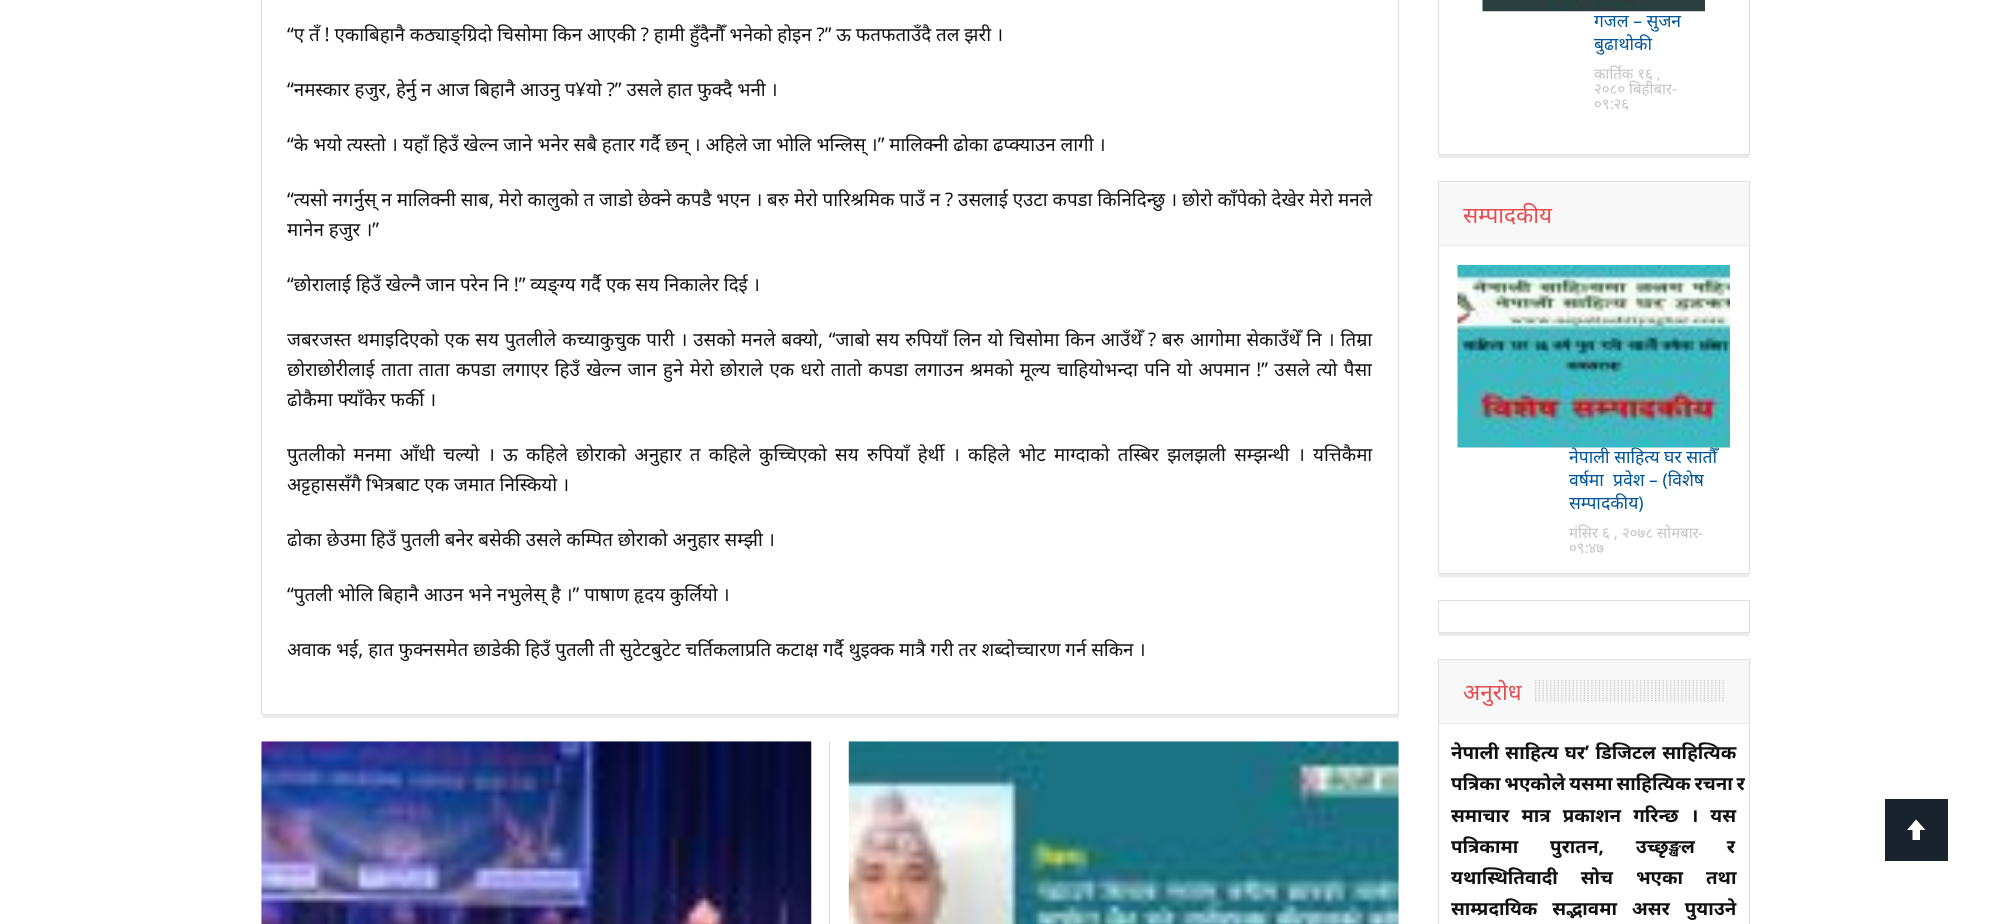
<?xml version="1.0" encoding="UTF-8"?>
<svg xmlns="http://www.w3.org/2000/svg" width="2010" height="924">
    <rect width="100%" height="100%" fill="#FFFFFF"/>
    <rect x="261.5" y="-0.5" width="1137" height="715" fill="none" stroke="#E0E0E0"/>
    <text x="287" y="41" font-family="Noto Sans" font-size="18.75" fill="#111111">“ए तँ ! एकाबिहानै कठ्याङ्ग्रिदो चिसोमा किन आएकी ? हामी हुँदैनौँ भनेको होइन ?” ऊ फतफताउँदै तल झरी ।</text>
    <text x="287" y="96" font-family="Noto Sans" font-size="18.75" fill="#111111">“नमस्कार हजुर, हेर्नु न आज बिहानै आउनु प¥यो ?” उसले हात फुक्दै भनी ।</text>
    <text x="287" y="151" font-family="Noto Sans" font-size="18.75" fill="#111111">“के भयो त्यस्तो । यहाँ हिउँ खेल्न जाने भनेर सबै हतार गर्दै छन् । अहिले जा भोलि भन्लिस् ।” मालिक्नी ढोका ढप्क्याउन लागी ।</text>
    <text font-family="Noto Sans" font-size="18.75" fill="#111111">
        <tspan x="287" y="206">“त्यसो नगर्नुस् न मालिक्नी साब, मेरो कालुको त जाडो छेक्ने कपडै भएन । बरु मेरो पारिश्रमिक पाउँ न ? उसलाई एउटा कपडा किनिदिन्छु । छोरो काँपेको देखेर मेरो मनले</tspan>
        <tspan x="287" y="236">मानेन हजुर ।”</tspan>
    </text>
    <text x="287" y="291" font-family="Noto Sans" font-size="18.75" fill="#111111">“छोरालाई हिउँ खेल्नै जान परेन नि !” व्यङ्ग्य गर्दै एक सय निकालेर दिई ।</text>
    <text font-family="Noto Sans" font-size="18.75" fill="#111111">
        <tspan x="287" y="346" word-spacing="1">जबरजस्त थमाइदिएको एक सय पुतलीले कच्याकुचुक पारी । उसको मनले बक्यो, “जाबो सय रुपियाँ लिन यो चिसोमा किन आउँथेँ ? बरु आगोमा सेकाउँथेँ नि । तिम्रा</tspan>
        <tspan x="287" y="376" word-spacing="1.45">छोराछोरीलाई ताता ताता कपडा लगाएर हिउँ खेल्न जान हुने मेरो छोराले एक धरो तातो कपडा लगाउन श्रमको मूल्य चाहियोभन्दा पनि यो अपमान !” उसले त्यो पैसा</tspan>
        <tspan x="287" y="406">ढोकैमा फ्याँकेर फर्की ।</tspan>
    </text>
    <text font-family="Noto Sans" font-size="18.75" fill="#111111">
        <tspan x="287" y="461" word-spacing="3.4">पुतलीको मनमा आँधी चल्यो । ऊ कहिले छोराको अनुहार त कहिले कुच्चिएको सय रुपियाँ हेर्थी । कहिले भोट माग्दाको तस्बिर झलझली सम्झन्थी । यत्तिकैमा</tspan>
        <tspan x="287" y="491">अट्टहाससँगै भित्रबाट एक जमात निस्कियो ।</tspan>
    </text>
    <text x="287" y="546" font-family="Noto Sans" font-size="18.75" fill="#111111">ढोका छेउमा हिउँ पुतली बनेर बसेकी उसले कम्पित छोराको अनुहार सम्झी ।</text>
    <text x="287" y="601" font-family="Noto Sans" font-size="18.75" fill="#111111">“पुतली भोलि बिहानै आउन भने नभुलेस् है ।” पाषाण हृदय कुर्लियो ।</text>
    <text x="287" y="656" font-family="Noto Sans" font-size="18.75" fill="#111111">अवाक भई, हात फुक्नसमेत छाडेकी हिउँ पुतलीे ती सुटेटबुटेट चर्तिकलाप्रति कटाक्ष गर्दै थुइक्क मात्रै गरी तर शब्दोच्चारण गर्न सकिन ।</text>
    <rect x="263" y="715" width="1135" height="3" fill="#EBEBEB"/>
    <image x="261" y="741" width="551" height="183" href="img_01.png"/>
    <rect x="829" y="741" width="1" height="183" fill="#E0E0E0"/>
    <image x="848" y="741" width="551" height="183" href="img_02.png"/>
    <rect x="1438.5" y="-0.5" width="311" height="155" fill="none" stroke="#E0E0E0"/>
    <image x="1482" y="0" width="223" height="12" href="img_03.png"/>
    <text font-family="Noto Sans" font-size="17.5" fill="#005596">
        <tspan x="1594" y="27">गजल – सुजन</tspan>
        <tspan x="1594" y="50">बुढाथोकी</tspan>
    </text>
    <text x="1594" y="79" font-family="Noto Sans" font-size="15" fill="#C6C6C6">कार्तिक १६</text>
    <text x="1657" y="79" font-family="Open Sans" font-size="15" fill="#C6C6C6">,</text>
    <text x="1594" y="94" font-family="Noto Sans" font-size="15" fill="#C6C6C6">२०८० बिहीबार</text>
    <text x="1672" y="94" font-family="Open Sans" font-size="15" fill="#C6C6C6">-</text>
    <text x="1594" y="109" font-family="Noto Sans" font-size="15" fill="#C6C6C6">०९ २६</text>
    <text x="1610" y="109" font-family="Open Sans" font-size="15" fill="#C6C6C6">:</text>
    <rect x="1439" y="155" width="310" height="3" fill="#EBEBEB"/>
    <rect x="1438.5" y="181.5" width="311" height="392" fill="none" stroke="#E0E0E0"/>
    <rect x="1439" y="183" width="310" height="62" fill="#F8F8F8"/>
    <rect x="1439" y="245" width="310" height="1" fill="#EAEAEA"/>
    <text x="1463" y="223" font-family="Noto Sans" font-size="22.5" fill="#E54E53">सम्पादकीय</text>
    <text x="1569" y="463" font-family="Noto Sans" font-size="17.5" fill="#005596">नेपाली साहित्य घर सातौँ</text>
    <image x="1457" y="265" width="273" height="183" href="img_04.png"/>
    <text font-family="Noto Sans" font-size="17.5" fill="#005596" xml:space="preserve"><tspan x="1569" y="486">वर्षमा  प्रवेश – (विशेष</tspan><tspan x="1569" y="509">सम्पादकीय)</tspan></text>
    <text x="1569" y="538" font-family="Noto Sans" font-size="15" fill="#C6C6C6">मंसिर ६</text>
    <text x="1622" y="538" font-family="Noto Sans" font-size="15" fill="#C6C6C6">२०७८ सोमबार</text>
    <text x="1698" y="538" font-family="Open Sans" font-size="15" fill="#C6C6C6">-</text>
    <text x="1614" y="538" font-family="Open Sans" font-size="15" fill="#C6C6C6">,</text>
    <text x="1569" y="553" font-family="Noto Sans" font-size="15" fill="#C6C6C6">०९ ४७</text>
    <text x="1585" y="553" font-family="Open Sans" font-size="15" fill="#C6C6C6">:</text>
    <rect x="1439" y="574" width="310" height="3" fill="#EBEBEB"/>
    <rect x="1438.5" y="600.5" width="311" height="32" fill="none" stroke="#E0E0E0"/>
    <rect x="1439" y="633" width="310" height="3" fill="#EBEBEB"/>
    <rect x="1438.5" y="659.5" width="311" height="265" fill="none" stroke="#E0E0E0"/>
    <rect x="1439" y="660" width="310" height="63" fill="#F8F8F8"/>
    <rect x="1439" y="723" width="310" height="1" fill="#EAEAEA"/>
    <image x="1535" y="680" width="189" height="23" href="img_05.png"/>
    <text x="1463" y="700" font-family="Noto Sans" font-size="22.5" fill="#E54E53">अनुरोध</text>
    <text font-family="Noto Sans" font-size="18.75" font-weight="700" fill="#111111">
        <tspan x="1451" y="759" word-spacing="1.5">नेपाली साहित्य घर’ डिजिटल साहित्यिक</tspan>
        <tspan x="1451" y="790" word-spacing="-1">पत्रिका भएकोले यसमा साहित्यिक रचना र</tspan>
        <tspan x="1451" y="822" word-spacing="7.25">समाचार मात्र प्रकाशन गरिन्छ । यस</tspan>
        <tspan x="1451" y="853" word-spacing="27">पत्रिकामा पुरातन, उच्छृङ्खल र</tspan>
        <tspan x="1451" y="884" word-spacing="18">यथास्थितिवादी सोच भएका तथा</tspan>
        <tspan x="1451" y="915" word-spacing="10">साम्प्रदायिक सद्भावमा असर पुयाउने</tspan>
    </text>
    <rect x="1885" y="799" width="63" height="62" fill="#19232D"/>
    <path d="M 1925.5 830 H 1920 V 840 H 1912.5 V 830 H 1907 L 1916 819.5 Z" fill="#FFFFFF"/>
</svg>
